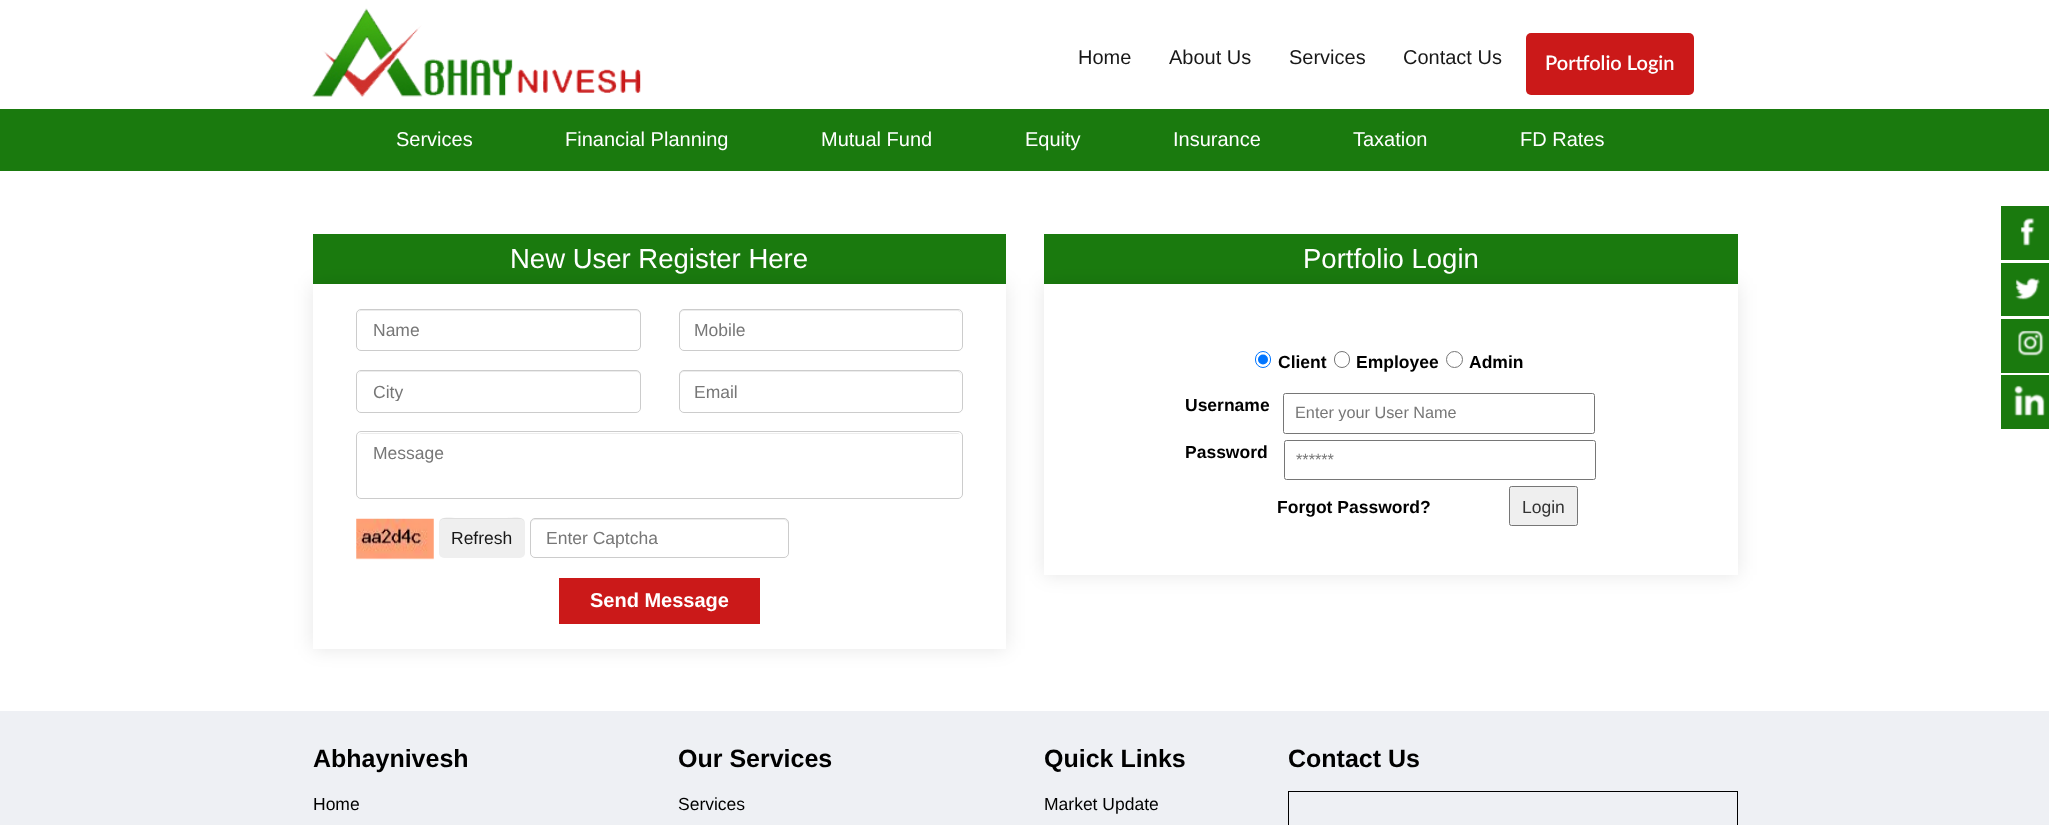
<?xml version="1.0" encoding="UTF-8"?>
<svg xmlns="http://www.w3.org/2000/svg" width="2049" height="825">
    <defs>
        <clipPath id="clip1"><path d="M 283 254 H 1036 V 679 H 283 Z M 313 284 H 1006 V 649 H 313 Z" clip-rule="evenodd"/></clipPath>
        <filter id="blur1" x="-50%" y="-200%" width="200%" height="500%"><feGaussianBlur stdDeviation="9.5"/></filter>
        <clipPath id="clip2"><rect x="373" y="381" width="252" height="20"/></clipPath>
        <clipPath id="clip3"><path d="M 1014 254 H 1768 V 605 H 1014 Z M 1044 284 H 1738 V 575 H 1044 Z" clip-rule="evenodd"/></clipPath>
        <clipPath id="clip4"><rect x="1295" y="403" width="288" height="18"/></clipPath>
    </defs>
    <rect width="100%" height="100%" fill="#FFFFFF"/>
    <image x="312" y="8" width="329" height="89" href="img_01.png"/>
    <text x="1078" y="64" font-family="Liberation Sans" font-size="20" fill="#181818">Home</text>
    <text x="1169" y="64" font-family="Liberation Sans" font-size="20" fill="#181818">About Us</text>
    <text x="1289" y="64" font-family="Liberation Sans" font-size="20" fill="#181818">Services</text>
    <text x="1403" y="64" font-family="Liberation Sans" font-size="20" fill="#181818">Contact Us</text>
    <rect x="1526" y="33" width="168" height="62" rx="5" fill="#CB1919"/>
    <text x="1545" y="70" font-family="Lato" font-size="20" font-weight="600" fill="#FFFFFF">Portfolio Login</text>
    <rect x="0" y="109" width="2049" height="62" fill="#1A7A0E"/>
    <text x="396" y="146" font-family="Liberation Sans" font-size="20" fill="#FFFFFF">Services</text>
    <text x="565" y="146" font-family="Liberation Sans" font-size="20" fill="#FFFFFF">Financial Planning</text>
    <text x="821" y="146" font-family="Liberation Sans" font-size="20" fill="#FFFFFF">Mutual Fund</text>
    <text x="1025" y="146" font-family="Liberation Sans" font-size="20" fill="#FFFFFF">Equity</text>
    <text x="1173" y="146" font-family="Liberation Sans" font-size="20" fill="#FFFFFF">Insurance</text>
    <text x="1353" y="146" font-family="Liberation Sans" font-size="20" fill="#FFFFFF">Taxation</text>
    <text x="1520" y="146" font-family="Liberation Sans" font-size="20" fill="#FFFFFF">FD Rates</text>
    <rect x="313" y="234" width="693" height="50" fill="#1A7A0E"/>
    <g clip-path="url(#clip1)">
        <rect x="313" y="284" width="693" height="365" fill="#000000" fill-opacity="0.1" filter="url(#blur1)"/>
    </g>
    <text x="510" y="268" font-family="Liberation Sans" font-size="27.5" fill="#FFFFFF">New User Register Here</text>
    <path d="M 361 311 H 636 C 638 311 640 313 640 315 C 640 312 639 310 636 310 H 362 C 359 310 358 312 358 315 C 358 313 359 311 361 311 Z" fill="#ECECEC"/>
    <rect x="356.5" y="309.5" width="284" height="41" rx="4.5" fill="none" stroke="#CCCCCC"/>
    <text x="373" y="336" font-family="Liberation Sans" font-size="17.5" fill="#777777">Name</text>
    <path d="M 684 311 H 958 L 960 312 L 961 315 C 961 312 960 310 957 310 H 684 C 681 310 680 312 680 315 C 680 313 682 311 684 311 Z" fill="#ECECEC"/>
    <rect x="679.5" y="309.5" width="283" height="41" rx="4.5" fill="none" stroke="#CCCCCC"/>
    <text x="694" y="336" font-family="Liberation Sans" font-size="17.5" fill="#777777">Mobile</text>
    <path d="M 361 372 H 636 C 638 372 640 374 640 376 C 640 373 639 371 636 371 H 362 C 359 371 358 373 358 376 C 358 374 359 372 361 372 Z" fill="#ECECEC"/>
    <rect x="356.5" y="370.5" width="284" height="42" rx="4.5" fill="none" stroke="#CCCCCC"/>
    <g clip-path="url(#clip2)">
        <text x="373" y="398" font-family="Liberation Sans" font-size="17.5" fill="#777777">City</text>
    </g>
    <path d="M 684 372 H 958 L 960 373 L 961 376 C 961 373 960 371 957 371 H 684 C 681 371 680 373 680 376 C 680 374 682 372 684 372 Z" fill="#ECECEC"/>
    <rect x="679.5" y="370.5" width="283" height="42" rx="4.5" fill="none" stroke="#CCCCCC"/>
    <text x="694" y="398" font-family="Liberation Sans" font-size="17.5" fill="#777777">Email</text>
    <path d="M 361 434 H 958 C 960 434 961 435 961 438 V 437 C 961 435 959 433 957 433 H 362 C 360 433 358 435 358 437 V 438 C 358 435 359 434 361 434 Z" fill="#ECECEC"/>
    <rect x="356.5" y="431.5" width="606" height="67" rx="4.5" fill="none" stroke="#CCCCCC"/>
    <text x="373" y="459" font-family="Liberation Sans" font-size="17.5" fill="#777777">Message</text>
    <image x="356" y="518" width="78" height="42" href="img_02.png"/>
    <rect x="439" y="518" width="86" height="40" rx="5" fill="#EFEFEF"/>
    <path d="M 444 519 H 520 C 523 519 525 521 525 524 C 525 515 513 518 507 518 H 457 C 451 518 439 515 439 524 C 439 521 441 519 444 519 Z" fill="#000000" fill-opacity="0.07"/>
    <text x="451" y="544" font-family="Liberation Sans" font-size="17.5" fill="#181818">Refresh</text>
    <path d="M 535 520 H 785 L 787 522 L 788 524 V 523 C 788 521 786 519 784 519 H 535 C 533 519 531 521 531 523 V 524 C 531 522 533 520 535 520 Z" fill="#ECECEC"/>
    <rect x="530.5" y="518.5" width="258" height="39" rx="4.5" fill="none" stroke="#CCCCCC"/>
    <text x="546" y="544" font-family="Liberation Sans" font-size="17.5" fill="#777777">Enter Captcha</text>
    <rect x="559" y="578" width="201" height="46" fill="#CB1919"/>
    <text x="590" y="607" font-family="Liberation Sans" font-size="20" font-weight="700" fill="#FFFFFF">Send Message</text>
    <rect x="1044" y="234" width="694" height="50" fill="#1A7A0E"/>
    <g clip-path="url(#clip3)">
        <rect x="1044" y="284" width="694" height="291" fill="#000000" fill-opacity="0.1" filter="url(#blur1)"/>
    </g>
    <text x="1303" y="268" font-family="Liberation Sans" font-size="27.5" fill="#FFFFFF">Portfolio Login</text>
    <rect x="1737" y="298" width="1" height="263" fill="#FFFFFF" fill-opacity="0.42"/>
    <rect x="1255.5" y="351.5" width="15" height="16" rx="7.5" fill="none" stroke="#0075FF"/>
    <circle cx="1263" cy="359.5" r="5" fill="#0075FF"/>
    <text x="1278" y="368" font-family="Liberation Sans" font-size="17.5" font-weight="700" fill="#000000">Client</text>
    <rect x="1334.5" y="351.5" width="15" height="16" rx="7.5" fill="none" stroke="#767676"/>
    <text x="1356" y="368" font-family="Liberation Sans" font-size="17.5" font-weight="700" fill="#000000">Employee</text>
    <circle cx="1454.5" cy="359.5" r="8" fill="none" stroke="#767676"/>
    <text x="1469" y="368" font-family="Liberation Sans" font-size="17.5" font-weight="700" fill="#000000">Admin</text>
    <text x="1185" y="411" font-family="Liberation Sans" font-size="17.5" font-weight="700" fill="#000000">Username</text>
    <rect x="1283.5" y="393.5" width="311" height="40" rx="2" fill="none" stroke="#767676"/>
    <g clip-path="url(#clip4)">
        <text x="1295" y="418" font-family="Liberation Sans" font-size="16.25" fill="#777777">Enter your User Name</text>
    </g>
    <text x="1185" y="458" font-family="Liberation Sans" font-size="17.5" font-weight="700" fill="#000000">Password</text>
    <rect x="1284.5" y="440.5" width="311" height="39" rx="2" fill="none" stroke="#767676"/>
    <text x="1296" y="465" font-family="Liberation Sans" font-size="16.25" fill="#777777">******</text>
    <text x="1277" y="513" font-family="Liberation Sans" font-size="17.5" font-weight="700" fill="#000000">Forgot Password?</text>
    <rect x="1509.5" y="486.5" width="68" height="39" rx="2" fill="#EFEFEF" stroke="#767676"/>
    <text x="1522" y="513" font-family="Liberation Sans" font-size="17.5" fill="#333333">Login</text>
    <rect x="0" y="711" width="2049" height="114" fill="#EEF0F4"/>
    <rect x="2001" y="206" width="48" height="54" fill="#1A7A0E"/>
    <image x="2020" y="218" width="15" height="28" href="img_03.png"/>
    <rect x="2001" y="263" width="48" height="53" fill="#1A7A0E"/>
    <image x="2015" y="278" width="25" height="22" href="img_04.png"/>
    <rect x="2001" y="319" width="48" height="54" fill="#1A7A0E"/>
    <image x="2018" y="330" width="26" height="26" href="img_05.png"/>
    <rect x="2001" y="375" width="48" height="54" fill="#1A7A0E"/>
    <image x="2014" y="385" width="31" height="31" href="img_06.png"/>
    <text x="313" y="767" font-family="Liberation Sans" font-size="25" font-weight="700" fill="#000000">Abhaynivesh</text>
    <text x="313" y="810" font-family="Liberation Sans" font-size="17.5" fill="#000000">Home</text>
    <text x="678" y="767" font-family="Liberation Sans" font-size="25" font-weight="700" fill="#000000">Our Services</text>
    <text x="678" y="810" font-family="Liberation Sans" font-size="17.5" fill="#000000">Services</text>
    <text x="1044" y="767" font-family="Liberation Sans" font-size="25" font-weight="700" fill="#000000">Quick Links</text>
    <text x="1044" y="810" font-family="Liberation Sans" font-size="17.5" fill="#000000">Market Update</text>
    <text x="1288" y="767" font-family="Liberation Sans" font-size="25" font-weight="700" fill="#000000">Contact Us</text>
    <rect x="1288.5" y="791.5" width="449" height="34" fill="none" stroke="#000000"/>
</svg>
